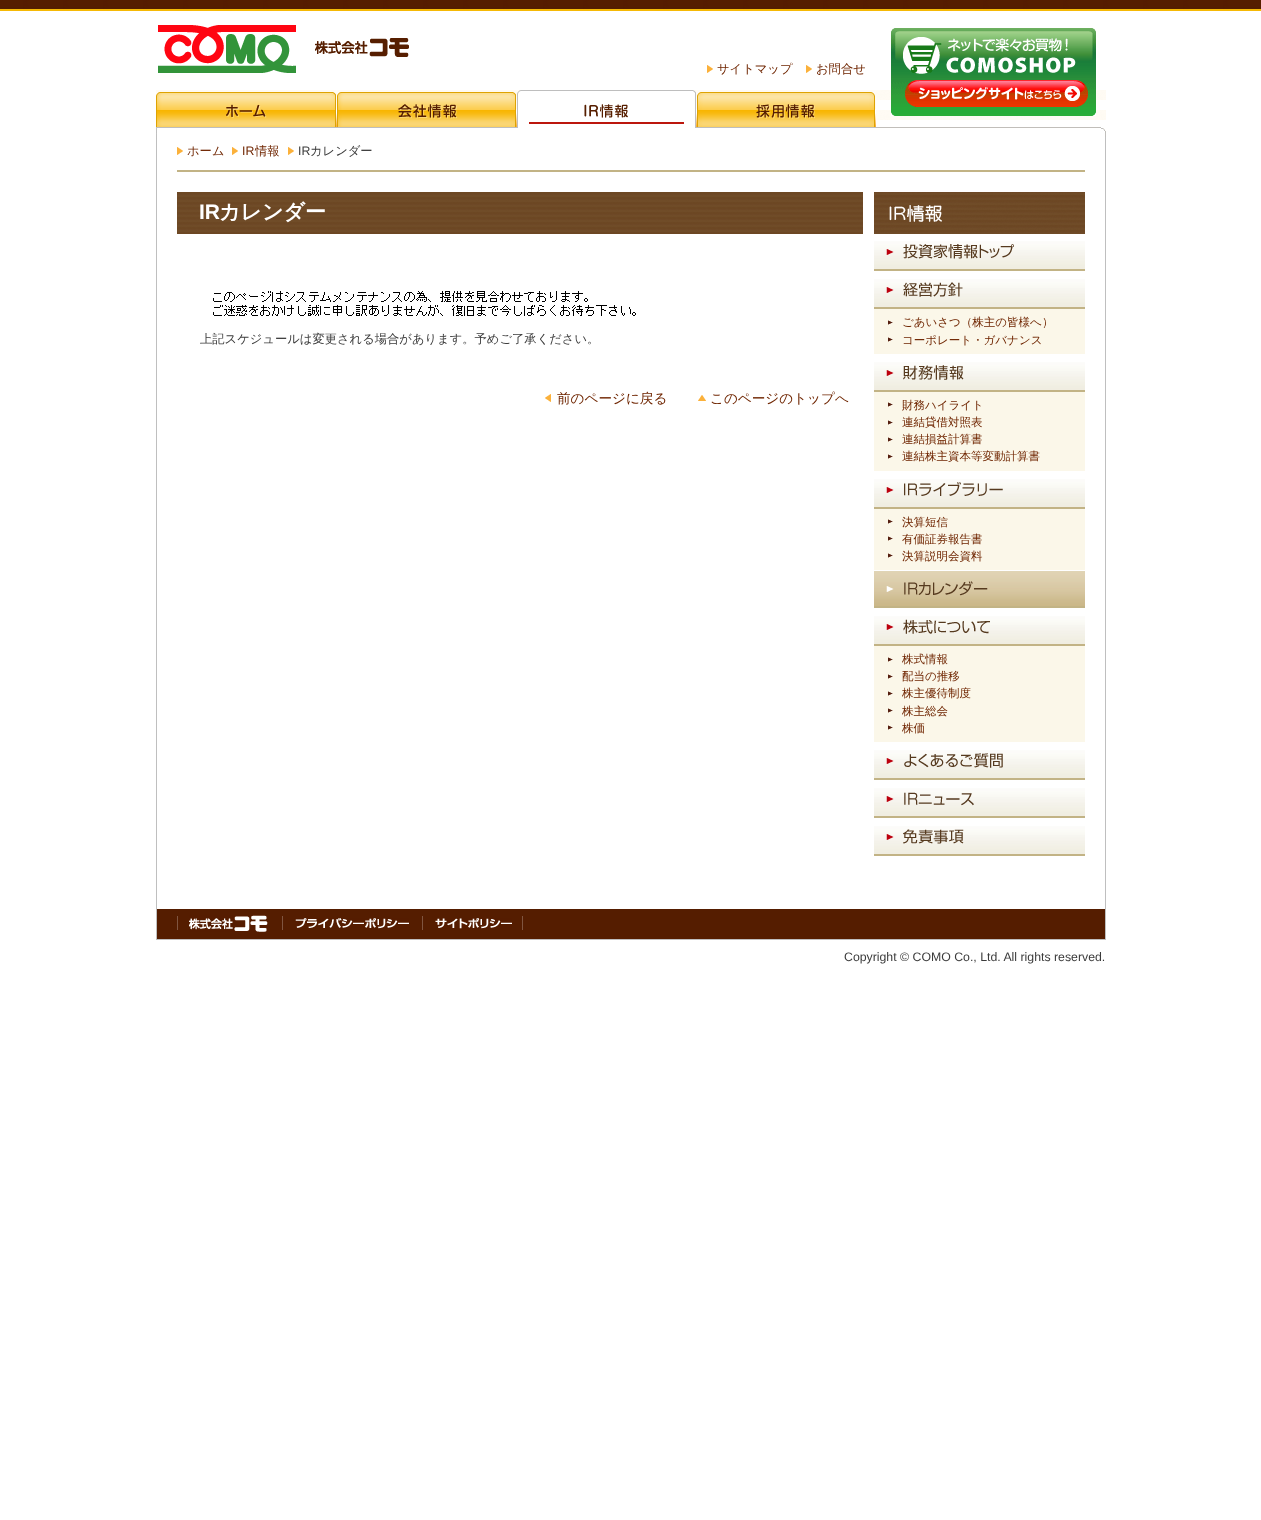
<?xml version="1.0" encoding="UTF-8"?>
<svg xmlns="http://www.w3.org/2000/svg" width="1261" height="1520">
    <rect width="100%" height="100%" fill="#FFFFFF"/>
    <image x="0" y="0" width="1261" height="11" href="img_01.png"/>
    <image x="158" y="25" width="251" height="48" href="img_02.png"/>
    <image x="156" y="90" width="950" height="49" href="img_03.png"/>
    <image x="156" y="92" width="180" height="35" href="img_04.png"/>
    <image x="337" y="92" width="179" height="35" href="img_05.png"/>
    <image x="517" y="90" width="179" height="38" href="img_06.png"/>
    <image x="697" y="92" width="178" height="35" href="img_07.png"/>
    <image x="891" y="28" width="205" height="88" href="img_08.png"/>
    <image x="707" y="65" width="6" height="8" href="img_09.png"/>
    <text x="717" y="73" font-family="WenQuanYi Zen Hei" font-size="12.3" font-weight="500" fill="#6F2500">サイトマップ</text>
    <image x="806" y="65" width="6" height="8" href="img_09.png"/>
    <text x="816" y="73" font-family="WenQuanYi Zen Hei" font-size="12.3" font-weight="500" fill="#6F2500">お問合せ</text>
    <rect x="1105" y="139" width="1" height="801" fill="#BFBFBF"/>
    <rect x="156" y="139" width="1" height="770" fill="#BFBFBF"/>
    <rect x="177" y="170" width="908" height="2" fill="#C2B385"/>
    <image x="177" y="147" width="6" height="8" href="img_09.png"/>
    <text x="187" y="155" font-family="WenQuanYi Zen Hei" font-size="12.3" font-weight="500" fill="#6F2500">ホーム</text>
    <image x="232" y="147" width="6" height="8" href="img_09.png"/>
    <text x="242" y="155" font-family="Liberation Sans" font-size="12.3" fill="#6F2500">IR</text>
    <text x="255" y="155" font-family="WenQuanYi Zen Hei" font-size="12.3" font-weight="500" fill="#6F2500">情報</text>
    <image x="288" y="147" width="6" height="8" href="img_09.png"/>
    <text x="298" y="155" font-family="Liberation Sans" font-size="12.3" fill="#3B3B3B">IR</text>
    <text x="310" y="155" font-family="WenQuanYi Zen Hei" font-size="12.3" font-weight="500" fill="#3B3B3B">カレンダー</text>
    <image x="177" y="192" width="686" height="42" href="img_10.png"/>
    <text x="199" y="219" font-family="Liberation Sans" font-size="21" font-weight="700" fill="#FFFFFF">IR</text>
    <text x="219" y="219" font-family="WenQuanYi Zen Hei" font-size="21" font-weight="700" fill="#FFFFFF">カレンダー</text>
    <image x="213" y="291" width="423" height="25" href="img_11.png"/>
    <text x="200" y="343" font-family="WenQuanYi Zen Hei" font-size="12.3" font-weight="500" fill="#3B3B3B">上記スケジュールは変更される場合があります。予めご了承ください。</text>
    <image x="545" y="394" width="6" height="8" href="img_12.png"/>
    <text x="557" y="403" font-family="WenQuanYi Zen Hei" font-size="13.6" font-weight="500" fill="#6F2500">前のページに戻る</text>
    <image x="698" y="395" width="8" height="6" href="img_13.png"/>
    <text x="710" y="403" font-family="WenQuanYi Zen Hei" font-size="13.6" font-weight="500" fill="#6F2500">このページのトップへ</text>
    <image x="874" y="192" width="211" height="42" href="img_14.png"/>
    <image x="874" y="241" width="211" height="30" href="img_15.png"/>
    <image x="874" y="279" width="211" height="30" href="img_16.png"/>
    <rect x="874" y="309" width="211" height="45" fill="#FBF7E9"/>
    <image x="888" y="320" width="5" height="5" href="img_17.png"/>
    <text x="902" y="326" font-family="WenQuanYi Zen Hei" font-size="11.5" font-weight="500" fill="#6F2500">ごあいさつ（株主の皆様へ）</text>
    <image x="888" y="337" width="5" height="5" href="img_17.png"/>
    <text x="902" y="344" font-family="WenQuanYi Zen Hei" font-size="11.5" font-weight="500" fill="#6F2500">コーポレート・ガバナンス</text>
    <image x="874" y="362" width="211" height="30" href="img_18.png"/>
    <rect x="874" y="392" width="211" height="79" fill="#FBF7E9"/>
    <image x="888" y="402" width="5" height="5" href="img_17.png"/>
    <text x="902" y="409" font-family="WenQuanYi Zen Hei" font-size="11.5" font-weight="500" fill="#6F2500">財務ハイライト</text>
    <image x="888" y="420" width="5" height="5" href="img_17.png"/>
    <text x="902" y="426" font-family="WenQuanYi Zen Hei" font-size="11.5" font-weight="500" fill="#6F2500">連結貸借対照表</text>
    <image x="888" y="437" width="5" height="5" href="img_17.png"/>
    <text x="902" y="443" font-family="WenQuanYi Zen Hei" font-size="11.5" font-weight="500" fill="#6F2500">連結損益計算書</text>
    <image x="888" y="454" width="5" height="5" href="img_17.png"/>
    <text x="902" y="460" font-family="WenQuanYi Zen Hei" font-size="11.5" font-weight="500" fill="#6F2500">連結株主資本等変動計算書</text>
    <image x="874" y="479" width="211" height="30" href="img_19.png"/>
    <rect x="874" y="509" width="211" height="61" fill="#FBF7E9"/>
    <image x="888" y="519" width="5" height="5" href="img_17.png"/>
    <text x="902" y="526" font-family="WenQuanYi Zen Hei" font-size="11.5" font-weight="500" fill="#6F2500">決算短信</text>
    <image x="888" y="536" width="5" height="5" href="img_17.png"/>
    <text x="902" y="543" font-family="WenQuanYi Zen Hei" font-size="11.5" font-weight="500" fill="#6F2500">有価証券報告書</text>
    <image x="888" y="553" width="5" height="5" href="img_17.png"/>
    <text x="902" y="560" font-family="WenQuanYi Zen Hei" font-size="11.5" font-weight="500" fill="#6F2500">決算説明会資料</text>
    <image x="874" y="571" width="211" height="37" href="img_20.png"/>
    <image x="874" y="616" width="211" height="30" href="img_21.png"/>
    <rect x="874" y="646" width="211" height="96" fill="#FBF7E9"/>
    <image x="888" y="657" width="5" height="5" href="img_17.png"/>
    <text x="902" y="663" font-family="WenQuanYi Zen Hei" font-size="11.5" font-weight="500" fill="#6F2500">株式情報</text>
    <image x="888" y="674" width="5" height="5" href="img_17.png"/>
    <text x="902" y="680" font-family="WenQuanYi Zen Hei" font-size="11.5" font-weight="500" fill="#6F2500">配当の推移</text>
    <image x="888" y="691" width="5" height="5" href="img_17.png"/>
    <text x="902" y="697" font-family="WenQuanYi Zen Hei" font-size="11.5" font-weight="500" fill="#6F2500">株主優待制度</text>
    <image x="888" y="708" width="5" height="5" href="img_17.png"/>
    <text x="902" y="715" font-family="WenQuanYi Zen Hei" font-size="11.5" font-weight="500" fill="#6F2500">株主総会</text>
    <image x="888" y="725" width="5" height="5" href="img_17.png"/>
    <text x="902" y="732" font-family="WenQuanYi Zen Hei" font-size="11.5" font-weight="500" fill="#6F2500">株価</text>
    <image x="874" y="750" width="211" height="30" href="img_22.png"/>
    <image x="874" y="788" width="211" height="30" href="img_23.png"/>
    <image x="874" y="826" width="211" height="30" href="img_24.png"/>
    <rect x="156" y="939" width="950" height="1" fill="#BFBFBF"/>
    <rect x="156" y="909" width="1" height="31" fill="#BFBFBF"/>
    <rect x="157" y="909" width="948" height="30" fill="#551D00"/>
    <rect x="177" y="916" width="1" height="14" fill="#805540"/>
    <image x="189" y="915" width="79" height="17" href="img_25.png"/>
    <rect x="282" y="916" width="1" height="14" fill="#805540"/>
    <image x="295" y="918" width="114" height="11" href="img_26.png"/>
    <rect x="422" y="916" width="1" height="14" fill="#805540"/>
    <image x="435" y="918" width="77" height="11" href="img_27.png"/>
    <rect x="522" y="916" width="1" height="14" fill="#805540"/>
    <text x="844" y="961" font-family="Liberation Sans" font-size="12.3" fill="#3B3B3B">Copyright © COMO Co., Ltd. All rights reserved.</text>
</svg>
